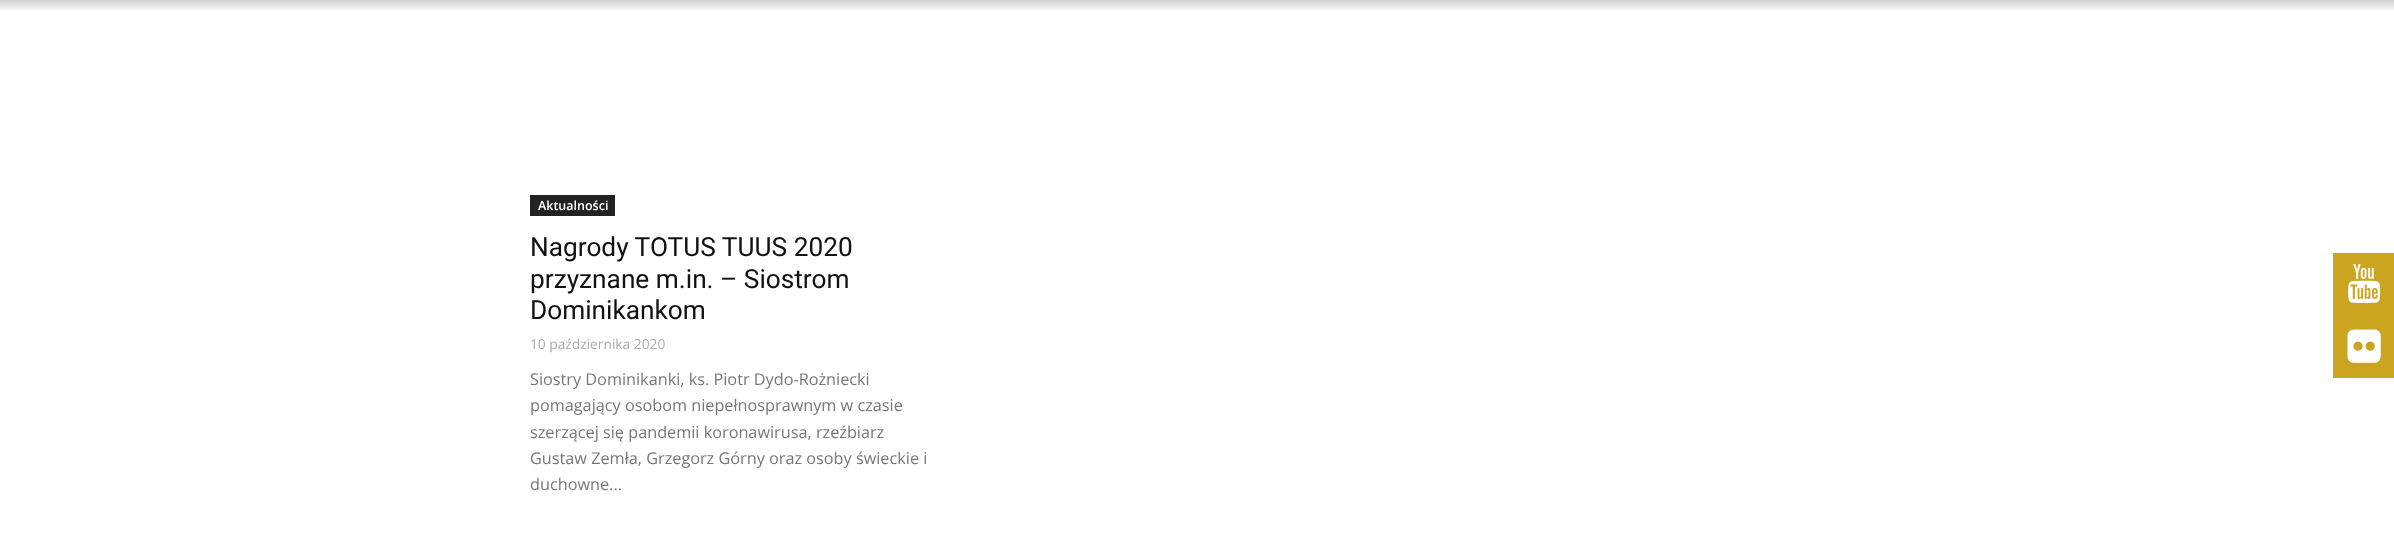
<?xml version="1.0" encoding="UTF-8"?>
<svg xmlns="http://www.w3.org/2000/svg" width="2394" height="560">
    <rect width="100%" height="100%" fill="#FFFFFF"/>
    <image x="0" y="0" width="2394" height="11" href="img_01.png"/>
    <image x="0" y="0" width="2394" height="9" href="img_02.png"/>
    <rect x="530" y="195" width="85" height="21" fill="#222222"/>
    <text x="538" y="210" font-family="Open Sans" font-size="12.5" font-weight="600" fill="#FFFFFF">Aktualności</text>
    <text font-family="Roboto" font-size="26.25" fill="#111111">
        <tspan x="530" y="256">Nagrody TOTUS TUUS 2020</tspan>
        <tspan x="530" y="288">przyznane m.in. – Siostrom</tspan>
        <tspan x="530" y="319">Dominikankom</tspan>
    </text>
    <text x="530" y="349" font-family="Open Sans" font-size="13.75" fill="#AAAAAA">10 października 2020</text>
    <text font-family="Open Sans" font-size="16.25" fill="#777777">
        <tspan x="530" y="385">Siostry Dominikanki, ks. Piotr Dydo-Rożniecki</tspan>
        <tspan x="530" y="411">pomagający osobom niepełnosprawnym w czasie</tspan>
        <tspan x="530" y="438">szerzącej się pandemii koronawirusa, rzeźbiarz</tspan>
        <tspan x="530" y="464">Gustaw Zemła, Grzegorz Górny oraz osoby świeckie i</tspan>
        <tspan x="530" y="490">duchowne...</tspan>
    </text>
    <rect x="2333" y="253" width="61" height="125" fill="#CBA520"/>
    <image x="2348" y="264" width="33" height="39" href="img_03.png"/>
    <image x="2347" y="329" width="34" height="34" href="img_04.png"/>
</svg>
